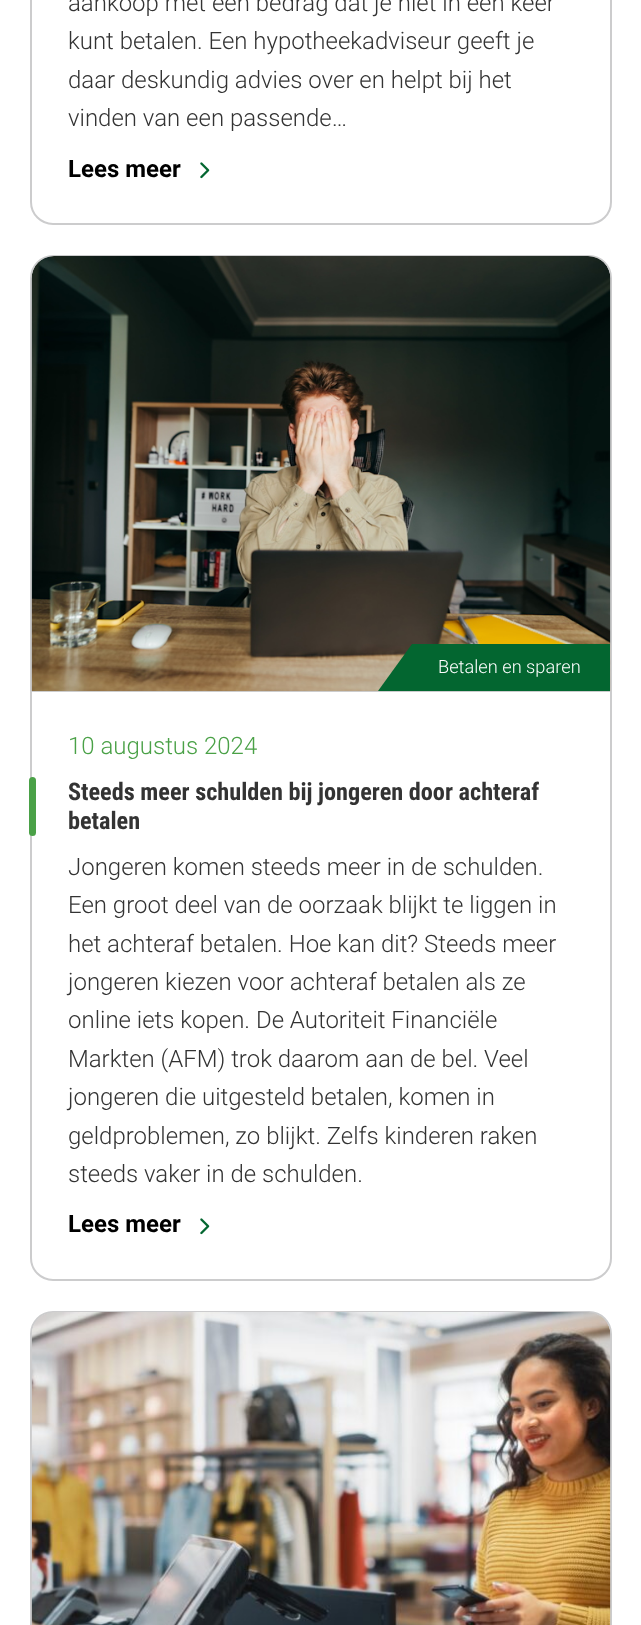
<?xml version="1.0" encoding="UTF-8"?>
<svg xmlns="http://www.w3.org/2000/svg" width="641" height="1625">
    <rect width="100%" height="100%" fill="#FFFFFF"/>
    <rect x="31" y="-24" width="580" height="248" rx="22" fill="none" stroke="#CCCCCD" stroke-width="2"/>
    <text font-family="Roboto" font-size="24" font-weight="300" fill="#333333">
        <tspan x="68" y="11">aankoop met een bedrag dat je niet in een keer</tspan>
        <tspan x="68" y="49">kunt betalen. Een hypotheekadviseur geeft je</tspan>
        <tspan x="68" y="88">daar deskundig advies over en helpt bij het</tspan>
        <tspan x="68" y="126">vinden van een passende…</tspan>
    </text>
    <text x="68" y="177" font-family="Roboto" font-size="24" font-weight="700" fill="#000000">Lees meer</text>
    <image x="200" y="162" width="10" height="17" href="img_01.png"/>
    <rect x="31" y="256" width="580" height="1024" rx="22" fill="none" stroke="#CCCCCD" stroke-width="2"/>
    <path d="M 55 257 H 588 C 600.5 257 611 267.5 611 280 V 692 H 32 V 280 C 32 267.5 42.5 257 55 257 Z" fill="#CCCCCD"/>
    <image x="31" y="256" width="580" height="435" href="img_02.png"/>
    <path d="M 378 691 L 412 644 H 610 V 691 Z" fill="#036630"/>
    <text x="438" y="673" font-family="Roboto" font-size="18.25" font-weight="300" fill="#FFFFFF">Betalen en sparen</text>
    <text x="68" y="754" font-family="Roboto" font-size="24" font-weight="300" fill="#4AA147">10 augustus 2024</text>
    <rect x="29" y="777" width="7" height="59" rx="3.5" fill="#4AA147"/>
    <text font-family="Roboto Condensed" font-size="24.25" font-weight="700" fill="#333333">
        <tspan x="68" y="800">Steeds meer schulden bij jongeren door achteraf</tspan>
        <tspan x="68" y="829">betalen</tspan>
    </text>
    <text font-family="Roboto" font-size="24" font-weight="300" fill="#333333">
        <tspan x="68" y="875">Jongeren komen steeds meer in de schulden.</tspan>
        <tspan x="68" y="913">Een groot deel van de oorzaak blijkt te liggen in</tspan>
        <tspan x="68" y="952">het achteraf betalen. Hoe kan dit? Steeds meer</tspan>
        <tspan x="68" y="990">jongeren kiezen voor achteraf betalen als ze</tspan>
        <tspan x="68" y="1028">online iets kopen. De Autoriteit Financiële</tspan>
        <tspan x="68" y="1067">Markten (AFM) trok daarom aan de bel. Veel</tspan>
        <tspan x="68" y="1105">jongeren die uitgesteld betalen, komen in</tspan>
        <tspan x="68" y="1144">geldproblemen, zo blijkt. Zelfs kinderen raken</tspan>
        <tspan x="68" y="1182">steeds vaker in de schulden.</tspan>
    </text>
    <text x="68" y="1232" font-family="Roboto" font-size="24" font-weight="700" fill="#000000">Lees meer</text>
    <image x="200" y="1218" width="10" height="17" href="img_01.png"/>
    <rect x="31" y="1312" width="580" height="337" rx="22" fill="none" stroke="#CCCCCD" stroke-width="2"/>
    <path d="M 55 1313 H 588 C 600.5 1313 611 1323.5 611 1336 V 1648 H 32 V 1336 C 32 1323.5 42.5 1313 55 1313 Z" fill="#CCCCCD"/>
    <image x="31" y="1312" width="580" height="313" href="img_03.png"/>
</svg>
